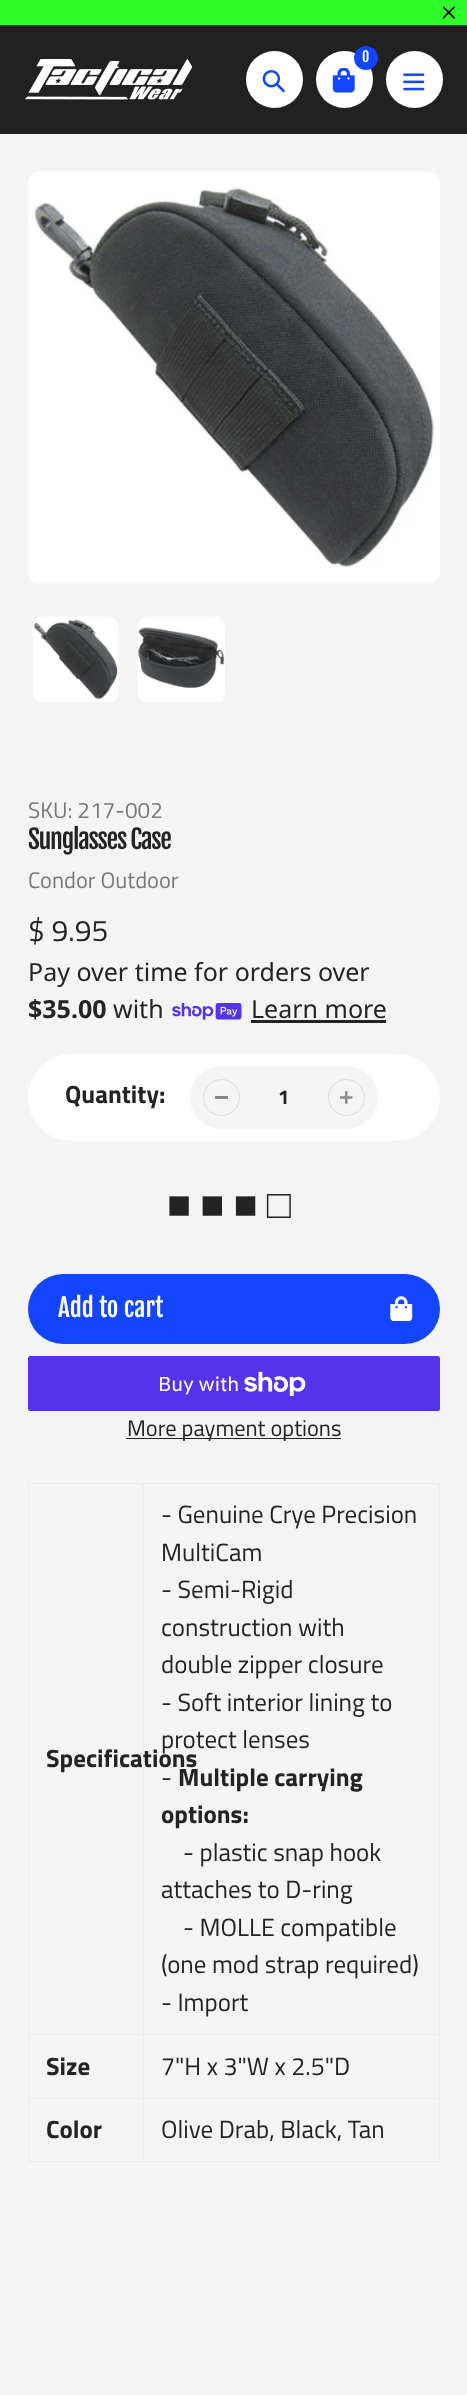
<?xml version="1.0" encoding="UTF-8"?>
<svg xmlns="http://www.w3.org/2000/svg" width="467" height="2395">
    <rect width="100%" height="100%" fill="#F4F4F4"/>
    <rect x="0" y="0" width="467" height="25" fill="#2EFD2A"/>
    <image x="443" y="6" width="12" height="13" href="img_01.png"/>
    <rect x="0" y="25" width="467" height="109" fill="#212121"/>
    <circle cx="274.5" cy="79.5" r="28.5" fill="#FFFFFF"/>
    <image x="262" y="70" width="23" height="23" href="img_02.png"/>
    <circle cx="344.5" cy="79.5" r="28.5" fill="#FFFFFF"/>
    <image x="332" y="68" width="23" height="25" href="img_03.png"/>
    <circle cx="366" cy="58" r="12" fill="#1345FF"/>
    <text x="362" y="62" font-family="Fjalla One" font-size="14" fill="#FFFFFF">0</text>
    <circle cx="414.5" cy="79.5" r="28.5" fill="#FFFFFF"/>
    <image x="403" y="73" width="22" height="18" href="img_04.png"/>
    <image x="25" y="59" width="167" height="41" href="img_05.png"/>
    <image x="28" y="171" width="412" height="413" href="img_06.png"/>
    <image x="33" y="616" width="86" height="86" href="img_07.png"/>
    <image x="138" y="616" width="87" height="86" href="img_08.png"/>
    <text x="28" y="818" font-family="Titillium Web" font-size="22.5" fill="#777777">SKU: 217-002</text>
    <text x="28" y="849" font-family="Fjalla One" font-size="26" letter-spacing="-1.25" fill="#232323">Sunglasses Case</text>
    <text x="28" y="888" font-family="Titillium Web" font-size="22.5" fill="#777777">Condor Outdoor</text>
    <text x="28" y="941" font-family="Titillium Web" font-size="30" fill="#232323">$ 9.95</text>
    <text x="28" y="981" font-family="Noto Sans" font-size="25" fill="#232323">Pay over time for orders over</text>
    <text x="28" y="1018" font-family="Noto Sans" font-size="25" font-weight="700" fill="#232323">$35.00</text>
    <text x="113" y="1018" font-family="Noto Sans" font-size="25" fill="#232323">with</text>
    <image x="172" y="1003" width="70" height="17" href="img_09.png"/>
    <text x="251" y="1018" font-family="Noto Sans" font-size="25" fill="#232323">Learn more</text>
    <rect x="251" y="1020" width="135" height="3" fill="#232323"/>
    <rect x="28" y="1054" width="412" height="87" rx="43.5" fill="#FFFFFF"/>
    <text x="65" y="1103" font-family="Titillium Web" font-size="25" font-weight="700" fill="#232323">Quantity:</text>
    <rect x="190" y="1066" width="188" height="63" rx="31.5" fill="#F4F4F4"/>
    <rect x="215" y="1096" width="13" height="3" fill="#898989"/>
    <circle cx="221.5" cy="1097.5" r="18" fill="none" stroke="#D7DBDB"/>
    <text x="278" y="1104" font-family="Titillium Web" font-size="20" font-weight="700" fill="#232323">1</text>
    <image x="340" y="1091" width="13" height="13" href="img_10.png"/>
    <circle cx="346.5" cy="1097.5" r="18" fill="none" stroke="#D7DBDB"/>
    <text x="167" y="1218" word-spacing="-2" font-family="Liberation Sans" font-size="40" fill="#232323">■ ■ ■ □</text>
    <rect x="28" y="1274" width="412" height="70" rx="35" fill="#1345FF"/>
    <text x="58" y="1317" font-family="Fjalla One" font-size="25" fill="#FFFFFF">Add to cart</text>
    <image x="390" y="1296" width="23" height="25" href="img_11.png"/>
    <rect x="28" y="1356" width="412" height="55" rx="2.5" fill="#5433EB"/>
    <text x="158" y="1391" font-family="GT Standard" font-size="20" fill="#FFFFFF">Buy with</text>
    <image x="244" y="1371" width="62" height="25" href="img_12.png"/>
    <rect x="126" y="1438" width="215" height="1" fill="#232323"/>
    <text x="127" y="1436" font-family="Titillium Web" font-size="22.5" fill="#232323">More payment options</text>
    <rect x="143" y="1483" width="297" height="1" fill="#EBEBEB"/>
    <rect x="143" y="2034" width="297" height="1" fill="#EBEBEB"/>
    <rect x="143" y="2098" width="297" height="1" fill="#EBEBEB"/>
    <rect x="439" y="2098" width="1" height="65" fill="#EBEBEB"/>
    <rect x="143" y="2161" width="297" height="1" fill="#EBEBEB"/>
    <rect x="143" y="2098" width="1" height="65" fill="#EBEBEB"/>
    <rect x="28" y="2098" width="116" height="1" fill="#EBEBEB"/>
    <rect x="143" y="2034" width="1" height="65" fill="#EBEBEB"/>
    <rect x="28" y="2034" width="116" height="1" fill="#EBEBEB"/>
    <rect x="143" y="1483" width="1" height="552" fill="#EBEBEB"/>
    <rect x="28" y="1483" width="116" height="1" fill="#EBEBEB"/>
    <rect x="28" y="2161" width="116" height="1" fill="#EBEBEB"/>
    <rect x="28" y="2098" width="1" height="65" fill="#EBEBEB"/>
    <rect x="28" y="2034" width="1" height="65" fill="#EBEBEB"/>
    <rect x="28" y="1483" width="1" height="552" fill="#EBEBEB"/>
    <text x="46" y="1767" font-family="Titillium Web" font-size="25" font-weight="700" fill="#232323">Specifications</text>
    <rect x="439" y="2034" width="1" height="65" fill="#EBEBEB"/>
    <rect x="439" y="1483" width="1" height="552" fill="#EBEBEB"/>
    <text font-family="Titillium Web" font-size="25" fill="#232323">
        <tspan x="161" y="1523">- Genuine Crye Precision</tspan>
        <tspan x="161" y="1561">MultiCam</tspan>
        <tspan x="161" y="1598">- Semi-Rigid</tspan>
        <tspan x="161" y="1636">construction with</tspan>
        <tspan x="161" y="1673">double zipper closure</tspan>
        <tspan x="161" y="1711">- Soft interior lining to</tspan>
        <tspan x="161" y="1748">protect lenses</tspan>
        <tspan x="161" y="1786">-</tspan>
    </text>
    <text x="178" y="1786" font-family="Titillium Web" font-size="25" font-weight="700" fill="#232323">Multiple carrying</text>
    <text x="161" y="1823" font-family="Titillium Web" font-size="25" font-weight="700" fill="#232323">options:</text>
    <text x="183" y="1861" font-family="Titillium Web" font-size="25" fill="#232323">- plastic snap hook</text>
    <text x="161" y="1898" font-family="Titillium Web" font-size="25" fill="#232323">attaches to D-ring</text>
    <text x="183" y="1936" font-family="Titillium Web" font-size="25" fill="#232323">- MOLLE compatible</text>
    <text font-family="Titillium Web" font-size="25" fill="#232323">
        <tspan x="161" y="1973">(one mod strap required)</tspan>
        <tspan x="161" y="2011">- Import</tspan>
    </text>
    <text x="46" y="2075" font-family="Titillium Web" font-size="25" font-weight="700" fill="#232323">Size</text>
    <text x="161" y="2075" font-family="Titillium Web" font-size="25" fill="#232323">7"H x 3"W x 2.5"D</text>
    <text x="46" y="2138" font-family="Titillium Web" font-size="25" font-weight="700" fill="#232323">Color</text>
    <text x="161" y="2138" font-family="Titillium Web" font-size="25" fill="#232323">Olive Drab, Black, Tan</text>
</svg>
